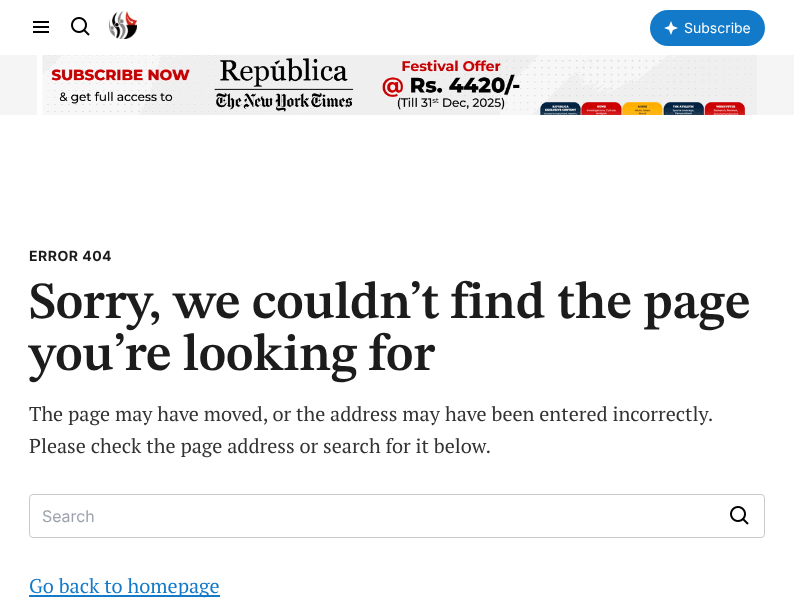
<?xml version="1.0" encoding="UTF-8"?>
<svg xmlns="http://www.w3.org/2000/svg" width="794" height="615">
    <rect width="100%" height="100%" fill="#FFFFFF"/>
    <image x="33" y="21" width="16" height="12" href="img_01.png"/>
    <image x="71" y="17" width="19" height="19" href="img_02.png"/>
    <image x="109" y="11" width="28" height="28" href="img_03.png"/>
    <rect x="650" y="10" width="115" height="36" rx="18" fill="#127AC9"/>
    <image x="664" y="21" width="14" height="14" href="img_04.png"/>
    <text x="684" y="33" font-family="'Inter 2'" font-size="14" fill="#FFFFFF">Subscribe</text>
    <rect x="0" y="55" width="794" height="60" fill="#F5F5F5"/>
    <image x="37" y="55" width="720" height="60" href="img_05.png"/>
    <text x="29" y="261" font-family="Inter" font-size="14" font-weight="700" letter-spacing="0.5" fill="#1C1C1C">ERROR 404</text>
    <text font-family="STIX Two Text" font-size="52" font-weight="600" letter-spacing="-0.5" fill="#1C1C1C">
        <tspan x="29" y="318">Sorry, we couldn’t find the page</tspan>
        <tspan x="29" y="370">you’re looking for</tspan>
    </text>
    <text x="29" y="421" font-family="PT Serif" font-size="20" fill="#333333">The page may have moved, or the address may</text>
    <text x="445" y="421" font-family="PT Serif" font-size="20" fill="#333333">have been entered incorrectly.</text>
    <text x="29" y="453" font-family="PT Serif" font-size="20" fill="#333333">Please check the page address or search for it below.</text>
    <rect x="29.5" y="494.5" width="735" height="43" rx="3.5" fill="none" stroke="#CACACA"/>
    <text x="42" y="522" font-family="Inter" font-size="16" fill="#9CA3AF">Search</text>
    <image x="730" y="506" width="19" height="19" href="img_02.png"/>
    <rect x="29" y="595" width="191" height="2" fill="#127AC9"/>
    <text x="29" y="593" font-family="PT Serif" font-size="20" fill="#127AC9">Go back to homepage</text>
</svg>
